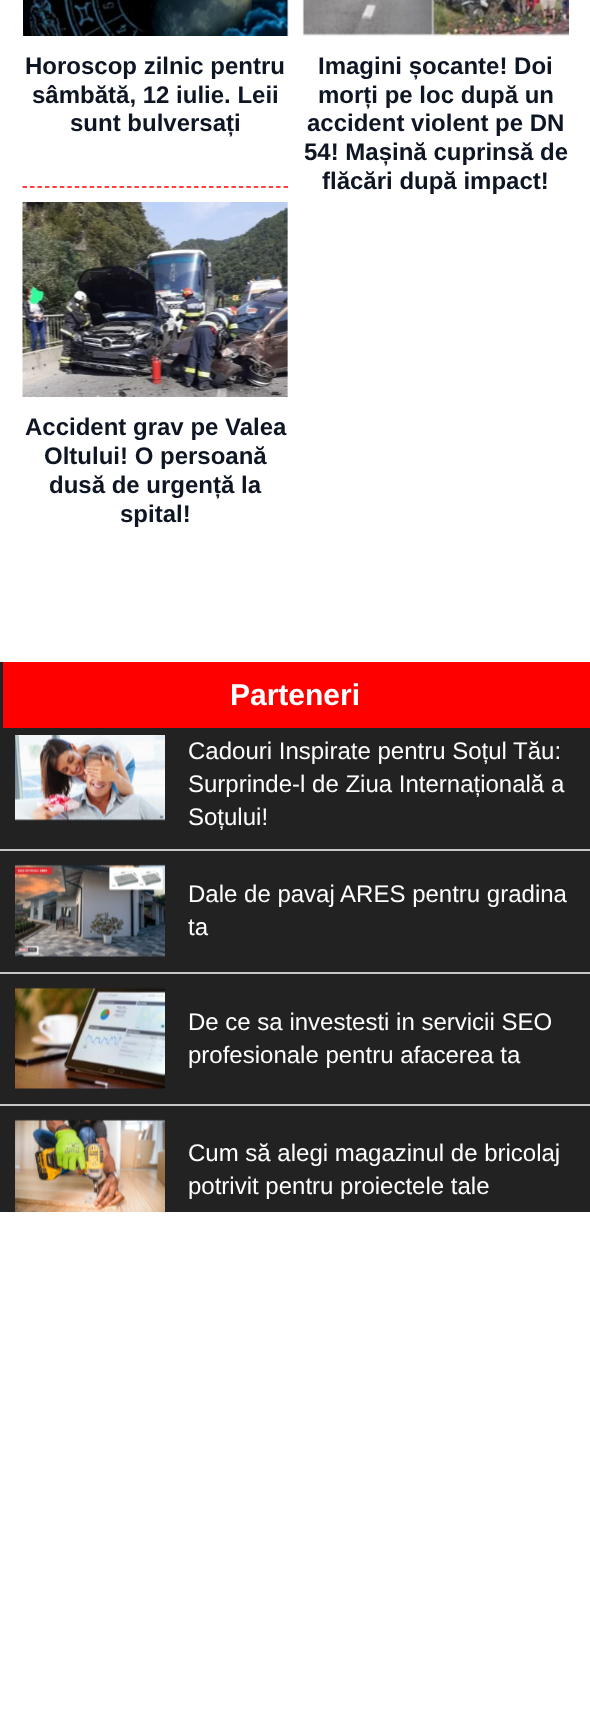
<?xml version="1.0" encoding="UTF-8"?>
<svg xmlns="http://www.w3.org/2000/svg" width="590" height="1716">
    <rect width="100%" height="100%" fill="#FFFFFF"/>
    <path d="M 22.5 187 H 288" fill="none" stroke="#FF0000" stroke-width="1.5" stroke-dasharray="4.5 2.96"/>
    <image x="23" y="0" width="266" height="36" href="img_01.png"/>
    <text x="25" y="74" font-family="Liberation Sans" font-size="24" font-weight="700" fill="#0E1523">Horoscop zilnic pentru</text>
    <text x="32" y="103" font-family="Liberation Sans" font-size="24" font-weight="700" fill="#0E1523">sâmbătă, 12 iulie. Leii</text>
    <text x="70" y="131" font-family="Liberation Sans" font-size="24" font-weight="700" fill="#0E1523">sunt bulversați</text>
    <image x="302" y="0" width="267" height="36" href="img_02.png"/>
    <text font-family="Liberation Sans" font-size="24" font-weight="700" fill="#0E1523">
        <tspan x="318" y="74">Imagini șocante! Doi</tspan>
        <tspan x="318" y="103">morți pe loc după un</tspan>
    </text>
    <text x="307" y="131" font-family="Liberation Sans" font-size="24" font-weight="700" fill="#0E1523">accident violent pe DN</text>
    <text x="304" y="160" font-family="Liberation Sans" font-size="24" font-weight="700" fill="#0E1523">54! Mașină cuprinsă de</text>
    <text x="322" y="189" font-family="Liberation Sans" font-size="24" font-weight="700" fill="#0E1523">flăcări după impact!</text>
    <image x="22" y="202" width="266" height="195" href="img_03.png"/>
    <text x="25" y="435" font-family="Liberation Sans" font-size="24" font-weight="700" fill="#0E1523">Accident grav pe Valea</text>
    <text x="44" y="464" font-family="Liberation Sans" font-size="24" font-weight="700" fill="#0E1523">Oltului! O persoană</text>
    <text x="49" y="493" font-family="Liberation Sans" font-size="24" font-weight="700" fill="#0E1523">dusă de urgență la</text>
    <text x="120" y="522" font-family="Liberation Sans" font-size="24" font-weight="700" fill="#0E1523">spital!</text>
    <rect x="0" y="728" width="590" height="484" fill="#222222"/>
    <rect x="3" y="662" width="587" height="66" fill="#FF0000"/>
    <rect x="0" y="662" width="3" height="66" fill="#222222"/>
    <text x="230" y="705" font-family="Liberation Sans" font-size="30" font-weight="700" fill="#FFFFFF">Parteneri</text>
    <rect x="0" y="849" width="590" height="2" fill="#C7C7C7"/>
    <image x="15" y="735" width="150" height="86" href="img_04.png"/>
    <text font-family="Liberation Sans" font-size="24" fill="#FFFFFF">
        <tspan x="188" y="759">Cadouri Inspirate pentru Soțul Tău:</tspan>
        <tspan x="188" y="792">Surprinde-l de Ziua Internațională a</tspan>
        <tspan x="188" y="825">Soțului!</tspan>
    </text>
    <rect x="0" y="972" width="590" height="2" fill="#C7C7C7"/>
    <image x="15" y="864" width="150" height="93" href="img_05.png"/>
    <text font-family="Liberation Sans" font-size="24" fill="#FFFFFF">
        <tspan x="188" y="902">Dale de pavaj ARES pentru gradina</tspan>
        <tspan x="188" y="935">ta</tspan>
    </text>
    <rect x="0" y="1104" width="590" height="2" fill="#C7C7C7"/>
    <image x="15" y="987" width="150" height="102" href="img_06.png"/>
    <text font-family="Liberation Sans" font-size="24" fill="#FFFFFF">
        <tspan x="188" y="1030">De ce sa investesti in servicii SEO</tspan>
        <tspan x="188" y="1063">profesionale pentru afacerea ta</tspan>
    </text>
    <image x="15" y="1119" width="150" height="93" href="img_07.png"/>
    <text font-family="Liberation Sans" font-size="24" fill="#FFFFFF">
        <tspan x="188" y="1161">Cum să alegi magazinul de bricolaj</tspan>
        <tspan x="188" y="1194">potrivit pentru proiectele tale</tspan>
    </text>
</svg>
